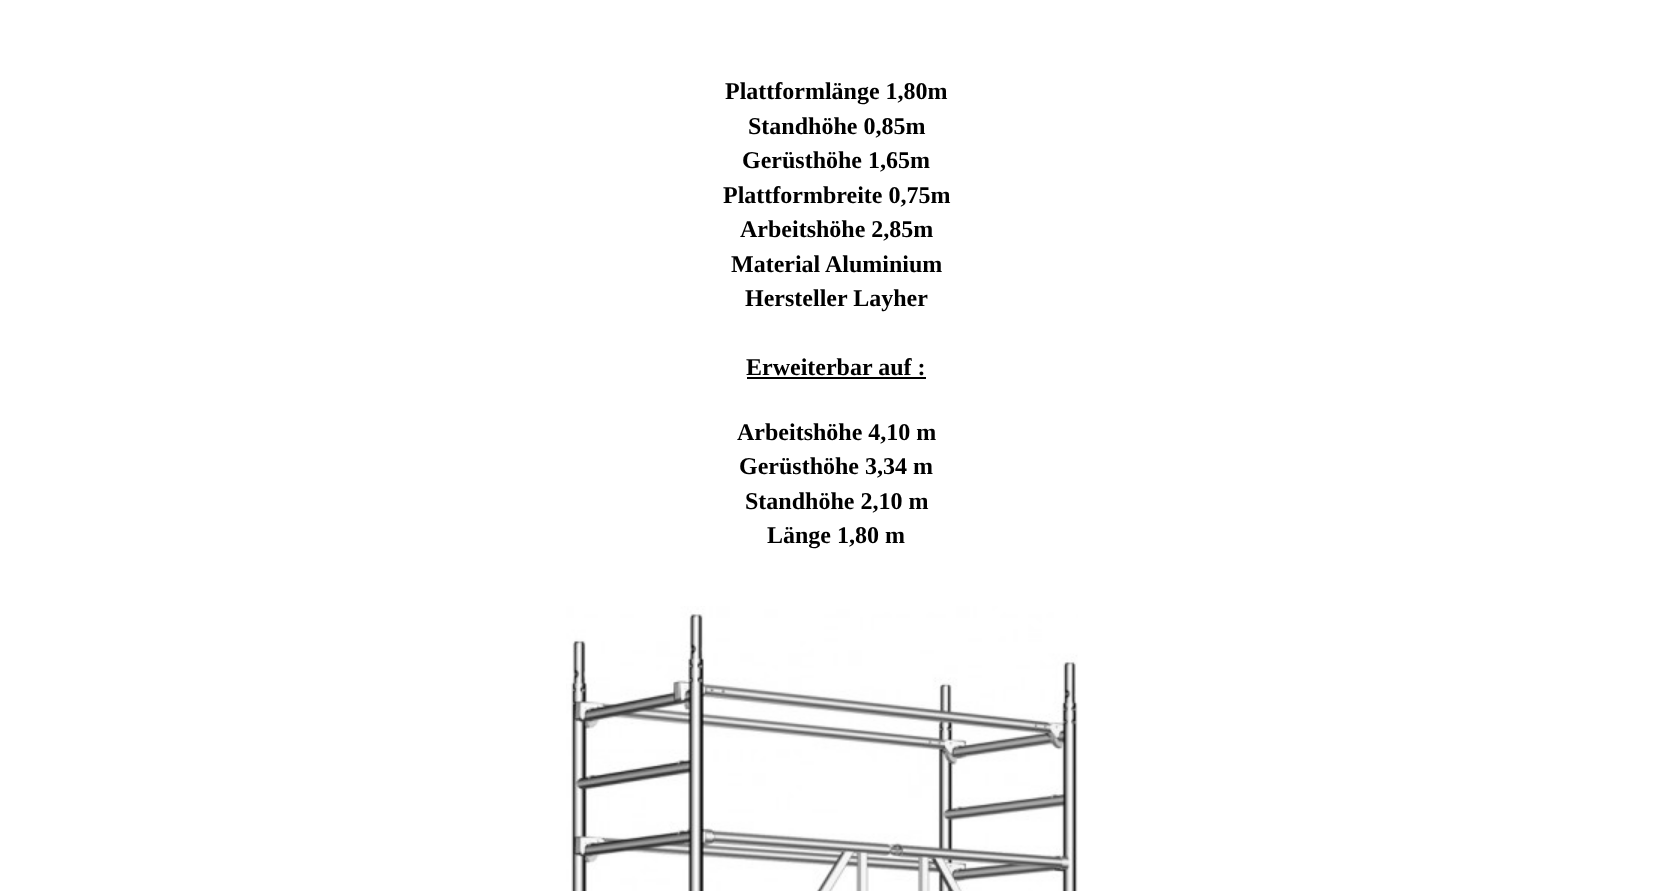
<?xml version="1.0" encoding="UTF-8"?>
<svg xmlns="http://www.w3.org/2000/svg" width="1672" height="891">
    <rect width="100%" height="100%" fill="#FFFFFF"/>
    <text x="725" y="99" font-family="Liberation Serif" font-size="24" font-weight="700" fill="#000000">Plattformlänge 1,80m</text>
    <text x="748" y="134" font-family="Liberation Serif" font-size="24" font-weight="700" fill="#000000">Standhöhe 0,85m</text>
    <text x="742" y="168" font-family="Liberation Serif" font-size="24" font-weight="700" fill="#000000">Gerüsthöhe 1,65m</text>
    <text x="723" y="203" font-family="Liberation Serif" font-size="24" font-weight="700" fill="#000000">Plattformbreite 0,75m</text>
    <text x="740" y="237" font-family="Liberation Serif" font-size="24" font-weight="700" fill="#000000">Arbeitshöhe 2,85m</text>
    <text x="731" y="272" font-family="Liberation Serif" font-size="24" font-weight="700" fill="#000000">Material Aluminium</text>
    <text x="745" y="306" font-family="Liberation Serif" font-size="24" font-weight="700" fill="#000000">Hersteller Layher</text>
    <text x="746" y="375" font-family="Liberation Serif" font-size="24" font-weight="700" fill="#000000">Erweiterbar auf :</text>
    <rect x="747" y="377" width="179" height="2" fill="#000000"/>
    <text x="737" y="440" font-family="Liberation Serif" font-size="24" font-weight="700" fill="#000000">Arbeitshöhe 4,10 m</text>
    <text x="739" y="474" font-family="Liberation Serif" font-size="24" font-weight="700" fill="#000000">Gerüsthöhe 3,34 m</text>
    <text x="745" y="509" font-family="Liberation Serif" font-size="24" font-weight="700" fill="#000000">Standhöhe 2,10 m</text>
    <text x="767" y="543" font-family="Liberation Serif" font-size="24" font-weight="700" fill="#000000">Länge 1,80 m</text>
    <image x="566" y="606" width="512" height="285" href="img_01.png"/>
</svg>
